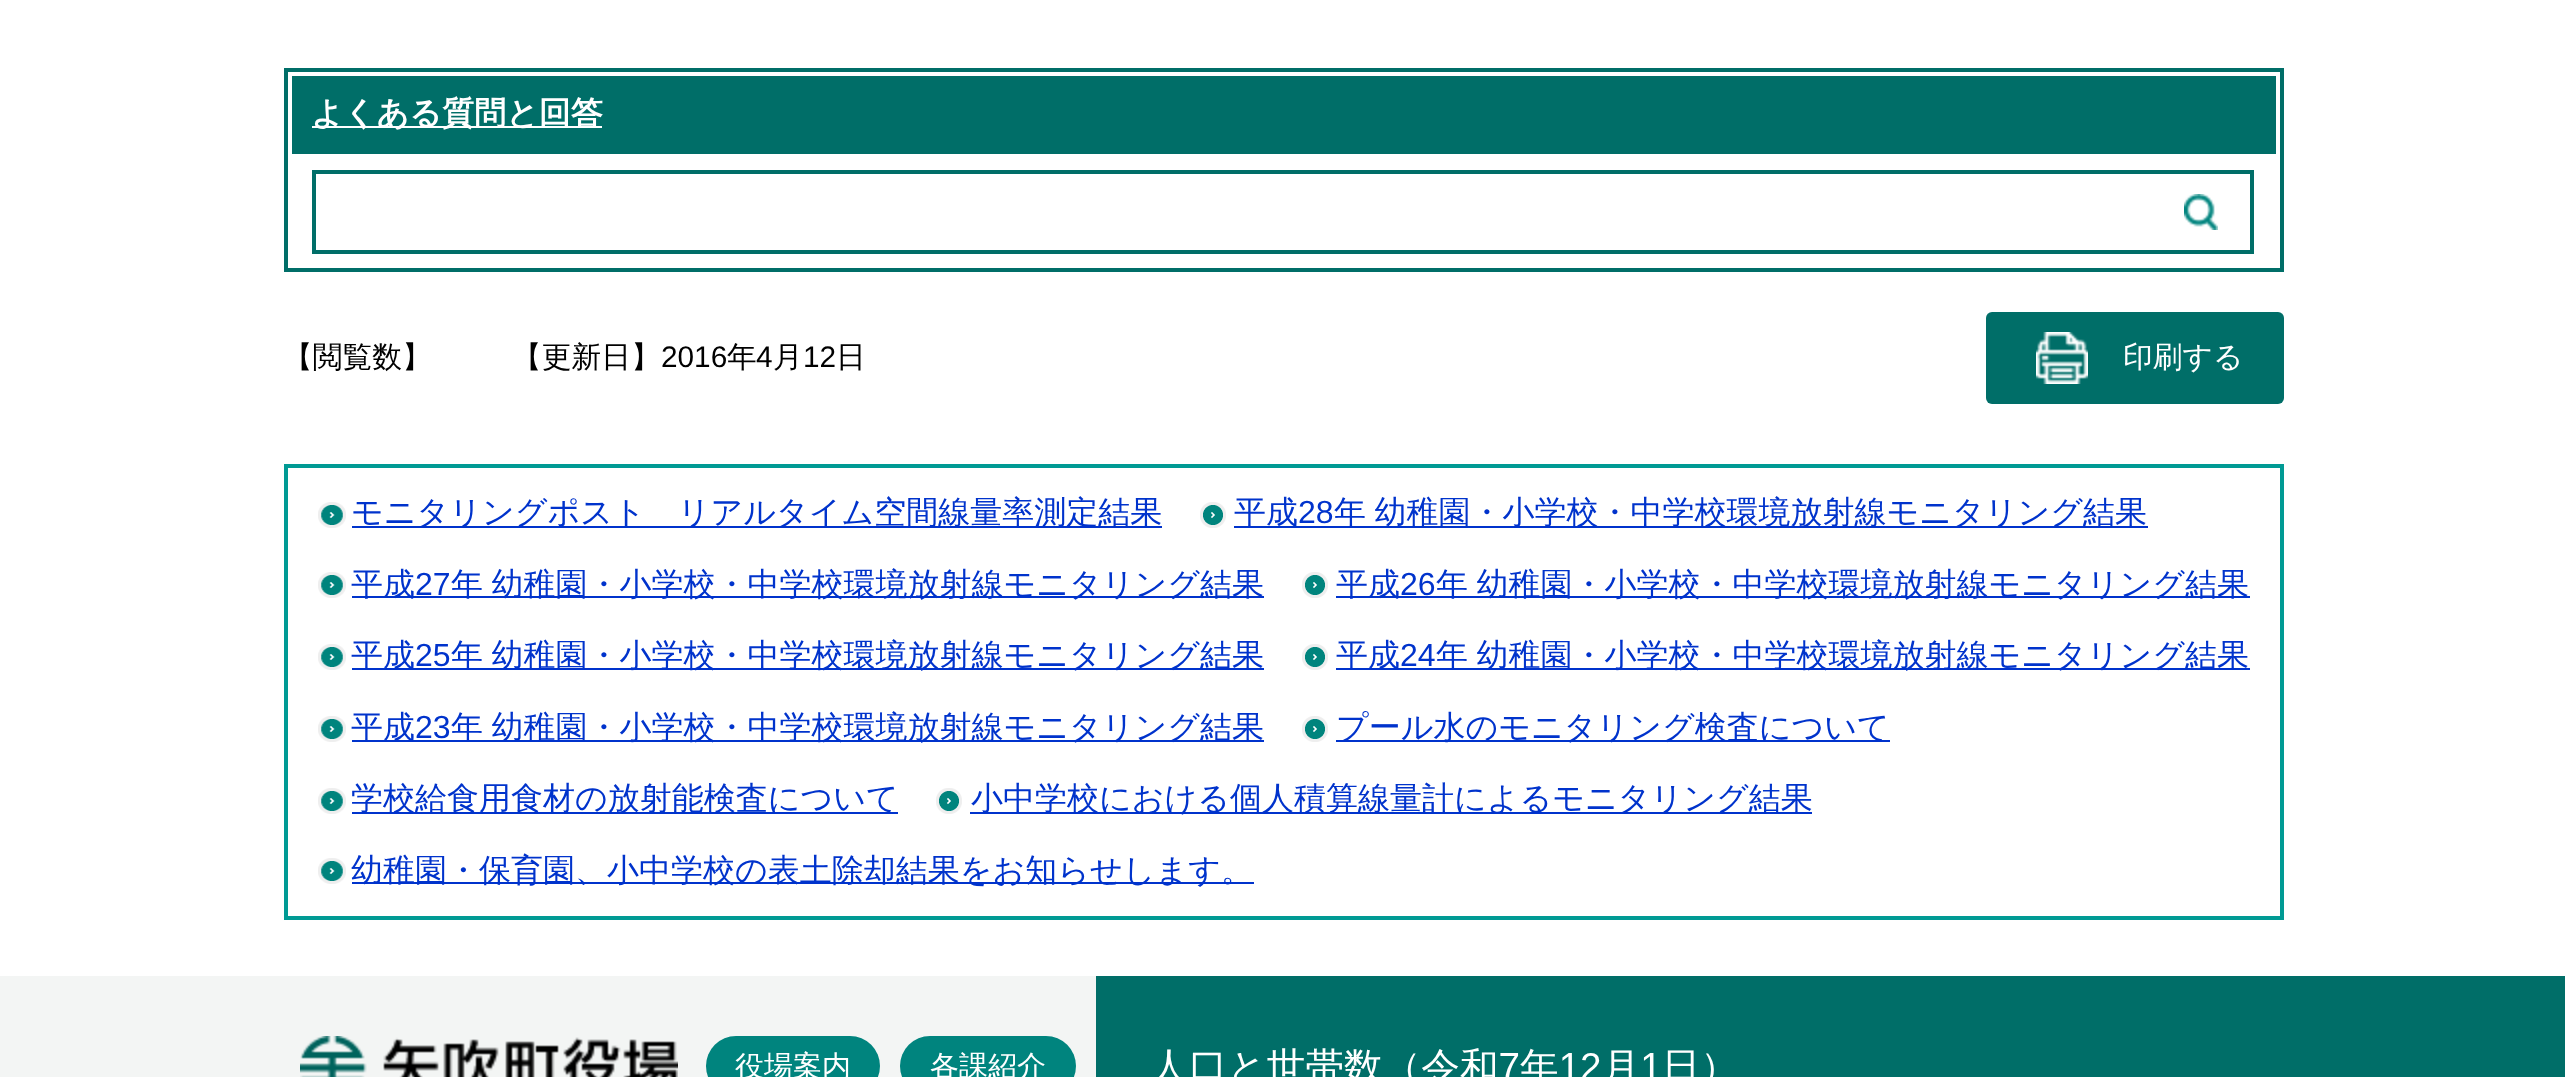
<?xml version="1.0" encoding="UTF-8"?>
<svg xmlns="http://www.w3.org/2000/svg" width="2565" height="1077">
    <rect width="100%" height="100%" fill="#FFFFFF"/>
    <rect x="286" y="70" width="1996" height="200" fill="none" stroke="#006E68" stroke-width="4"/>
    <rect x="292" y="76" width="1984" height="78" fill="#006E68"/>
    <rect x="312" y="126" width="290" height="2" fill="#FFFFFF"/>
    <text x="311" y="124" font-family="WenQuanYi Zen Hei" font-size="32" font-weight="700" fill="#FFFFFF">よくある質問と回答</text>
    <rect x="314" y="172" width="1938" height="80" fill="none" stroke="#006E68" stroke-width="4"/>
    <image x="2184" y="194" width="34" height="36" href="img_01.png"/>
    <text x="283" y="367" font-family="WenQuanYi Zen Hei" font-size="29.75" font-weight="500" fill="#000000">【閲覧数】</text>
    <text x="512" y="367" font-family="WenQuanYi Zen Hei" font-size="29.75" font-weight="500" fill="#000000">【更新日】</text>
    <text x="661" y="367" font-family="Liberation Sans" font-size="29.75" fill="#000000">2016</text>
    <text x="727" y="367" font-family="WenQuanYi Zen Hei" font-size="29.75" font-weight="500" fill="#000000">年</text>
    <text x="756" y="367" font-family="Liberation Sans" font-size="29.75" fill="#000000">4</text>
    <text x="773" y="367" font-family="WenQuanYi Zen Hei" font-size="29.75" font-weight="500" fill="#000000">月</text>
    <text x="803" y="367" font-family="Liberation Sans" font-size="29.75" fill="#000000">12</text>
    <text x="836" y="367" font-family="WenQuanYi Zen Hei" font-size="29.75" font-weight="500" fill="#000000">日</text>
    <rect x="1986" y="312" width="298" height="92" rx="6" fill="#006E68"/>
    <image x="2036" y="332" width="52" height="52" href="img_02.png"/>
    <text x="2123" y="367" font-family="WenQuanYi Zen Hei" font-size="29.75" font-weight="500" fill="#FFFFFF">印刷する</text>
    <rect x="286" y="466" width="1996" height="452" fill="none" stroke="#009A94" stroke-width="4"/>
    <image x="318" y="502" width="28" height="26" href="img_03.png"/>
    <rect x="352" y="526" width="810" height="2" fill="#0033CC"/>
    <text x="351" y="523" font-family="WenQuanYi Zen Hei" font-size="32" font-weight="500" fill="#0033CC">モニタリングポスト　リアルタイム空間線量率測定結果</text>
    <image x="1200" y="502" width="26" height="26" href="img_04.png"/>
    <rect x="1234" y="526" width="914" height="2" fill="#0033CC"/>
    <text x="1234" y="523" font-family="WenQuanYi Zen Hei" font-size="32" font-weight="500" fill="#0033CC">平成</text>
    <text x="1298" y="523" font-family="Liberation Sans" font-size="32" fill="#0033CC">28</text>
    <text x="1334" y="523" word-spacing="-1" font-family="WenQuanYi Zen Hei" font-size="32" font-weight="500" fill="#0033CC">年 幼稚園・小学校・中学校環境放射線モニタリング結果</text>
    <image x="318" y="572" width="28" height="26" href="img_03.png"/>
    <rect x="352" y="596" width="912" height="2" fill="#0033CC"/>
    <text x="351" y="595" font-family="WenQuanYi Zen Hei" font-size="32" font-weight="500" fill="#0033CC">平成</text>
    <text x="415" y="595" font-family="Liberation Sans" font-size="32" fill="#0033CC">27</text>
    <text x="451" y="595" word-spacing="-1" font-family="WenQuanYi Zen Hei" font-size="32" font-weight="500" fill="#0033CC">年 幼稚園・小学校・中学校環境放射線モニタリング結果</text>
    <image x="1302" y="572" width="26" height="26" href="img_04.png"/>
    <rect x="1336" y="596" width="914" height="2" fill="#0033CC"/>
    <text x="1336" y="595" font-family="WenQuanYi Zen Hei" font-size="32" font-weight="500" fill="#0033CC">平成</text>
    <text x="1400" y="595" font-family="Liberation Sans" font-size="32" fill="#0033CC">26</text>
    <text x="1436" y="595" word-spacing="-1" font-family="WenQuanYi Zen Hei" font-size="32" font-weight="500" fill="#0033CC">年 幼稚園・小学校・中学校環境放射線モニタリング結果</text>
    <image x="318" y="644" width="28" height="26" href="img_03.png"/>
    <rect x="352" y="668" width="912" height="2" fill="#0033CC"/>
    <text x="351" y="666" font-family="WenQuanYi Zen Hei" font-size="32" font-weight="500" fill="#0033CC">平成</text>
    <text x="415" y="666" font-family="Liberation Sans" font-size="32" fill="#0033CC">25</text>
    <text x="451" y="666" word-spacing="-1" font-family="WenQuanYi Zen Hei" font-size="32" font-weight="500" fill="#0033CC">年 幼稚園・小学校・中学校環境放射線モニタリング結果</text>
    <image x="1302" y="644" width="26" height="26" href="img_04.png"/>
    <rect x="1336" y="668" width="914" height="2" fill="#0033CC"/>
    <text x="1336" y="666" font-family="WenQuanYi Zen Hei" font-size="32" font-weight="500" fill="#0033CC">平成</text>
    <text x="1400" y="666" font-family="Liberation Sans" font-size="32" fill="#0033CC">24</text>
    <text x="1436" y="666" word-spacing="-1" font-family="WenQuanYi Zen Hei" font-size="32" font-weight="500" fill="#0033CC">年 幼稚園・小学校・中学校環境放射線モニタリング結果</text>
    <image x="318" y="716" width="28" height="26" href="img_03.png"/>
    <rect x="352" y="740" width="912" height="2" fill="#0033CC"/>
    <text x="351" y="738" font-family="WenQuanYi Zen Hei" font-size="32" font-weight="500" fill="#0033CC">平成</text>
    <text x="415" y="738" font-family="Liberation Sans" font-size="32" fill="#0033CC">23</text>
    <text x="451" y="738" word-spacing="-1" font-family="WenQuanYi Zen Hei" font-size="32" font-weight="500" fill="#0033CC">年 幼稚園・小学校・中学校環境放射線モニタリング結果</text>
    <image x="1302" y="716" width="26" height="26" href="img_04.png"/>
    <rect x="1336" y="740" width="554" height="2" fill="#0033CC"/>
    <text x="1336" y="738" font-family="WenQuanYi Zen Hei" font-size="32" font-weight="500" fill="#0033CC">プール水のモニタリング検査について</text>
    <image x="318" y="788" width="28" height="26" href="img_03.png"/>
    <rect x="352" y="812" width="546" height="2" fill="#0033CC"/>
    <text x="351" y="809" font-family="WenQuanYi Zen Hei" font-size="32" font-weight="500" fill="#0033CC">学校給食用食材の放射能検査について</text>
    <image x="936" y="788" width="26" height="26" href="img_04.png"/>
    <rect x="970" y="812" width="842" height="2" fill="#0033CC"/>
    <text x="971" y="809" font-family="WenQuanYi Zen Hei" font-size="32" font-weight="500" fill="#0033CC">小中学校における個人積算線量計によるモニタリング結果</text>
    <image x="318" y="858" width="28" height="26" href="img_03.png"/>
    <rect x="352" y="882" width="902" height="2" fill="#0033CC"/>
    <text x="351" y="881" font-family="WenQuanYi Zen Hei" font-size="32" font-weight="500" fill="#0033CC">幼稚園・保育園、小中学校の表土除却結果をお知らせします。</text>
    <image x="0" y="976" width="2565" height="101" href="img_05.png"/>
    <image x="300" y="1036" width="378" height="41" href="img_06.png"/>
    <rect x="706" y="1036" width="174" height="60" rx="30" fill="#00847E"/>
    <text x="735" y="1076" font-family="WenQuanYi Zen Hei" font-size="29" font-weight="500" fill="#FFFFFF">役場案内</text>
    <rect x="900" y="1036" width="176" height="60" rx="30" fill="#00847E"/>
    <text x="930" y="1076" font-family="WenQuanYi Zen Hei" font-size="29" font-weight="500" fill="#FFFFFF">各課紹介</text>
    <rect x="1096" y="976" width="188" height="101" fill="#006E68"/>
    <image x="1159" y="1048" width="555" height="29" href="img_07.png"/>
</svg>
